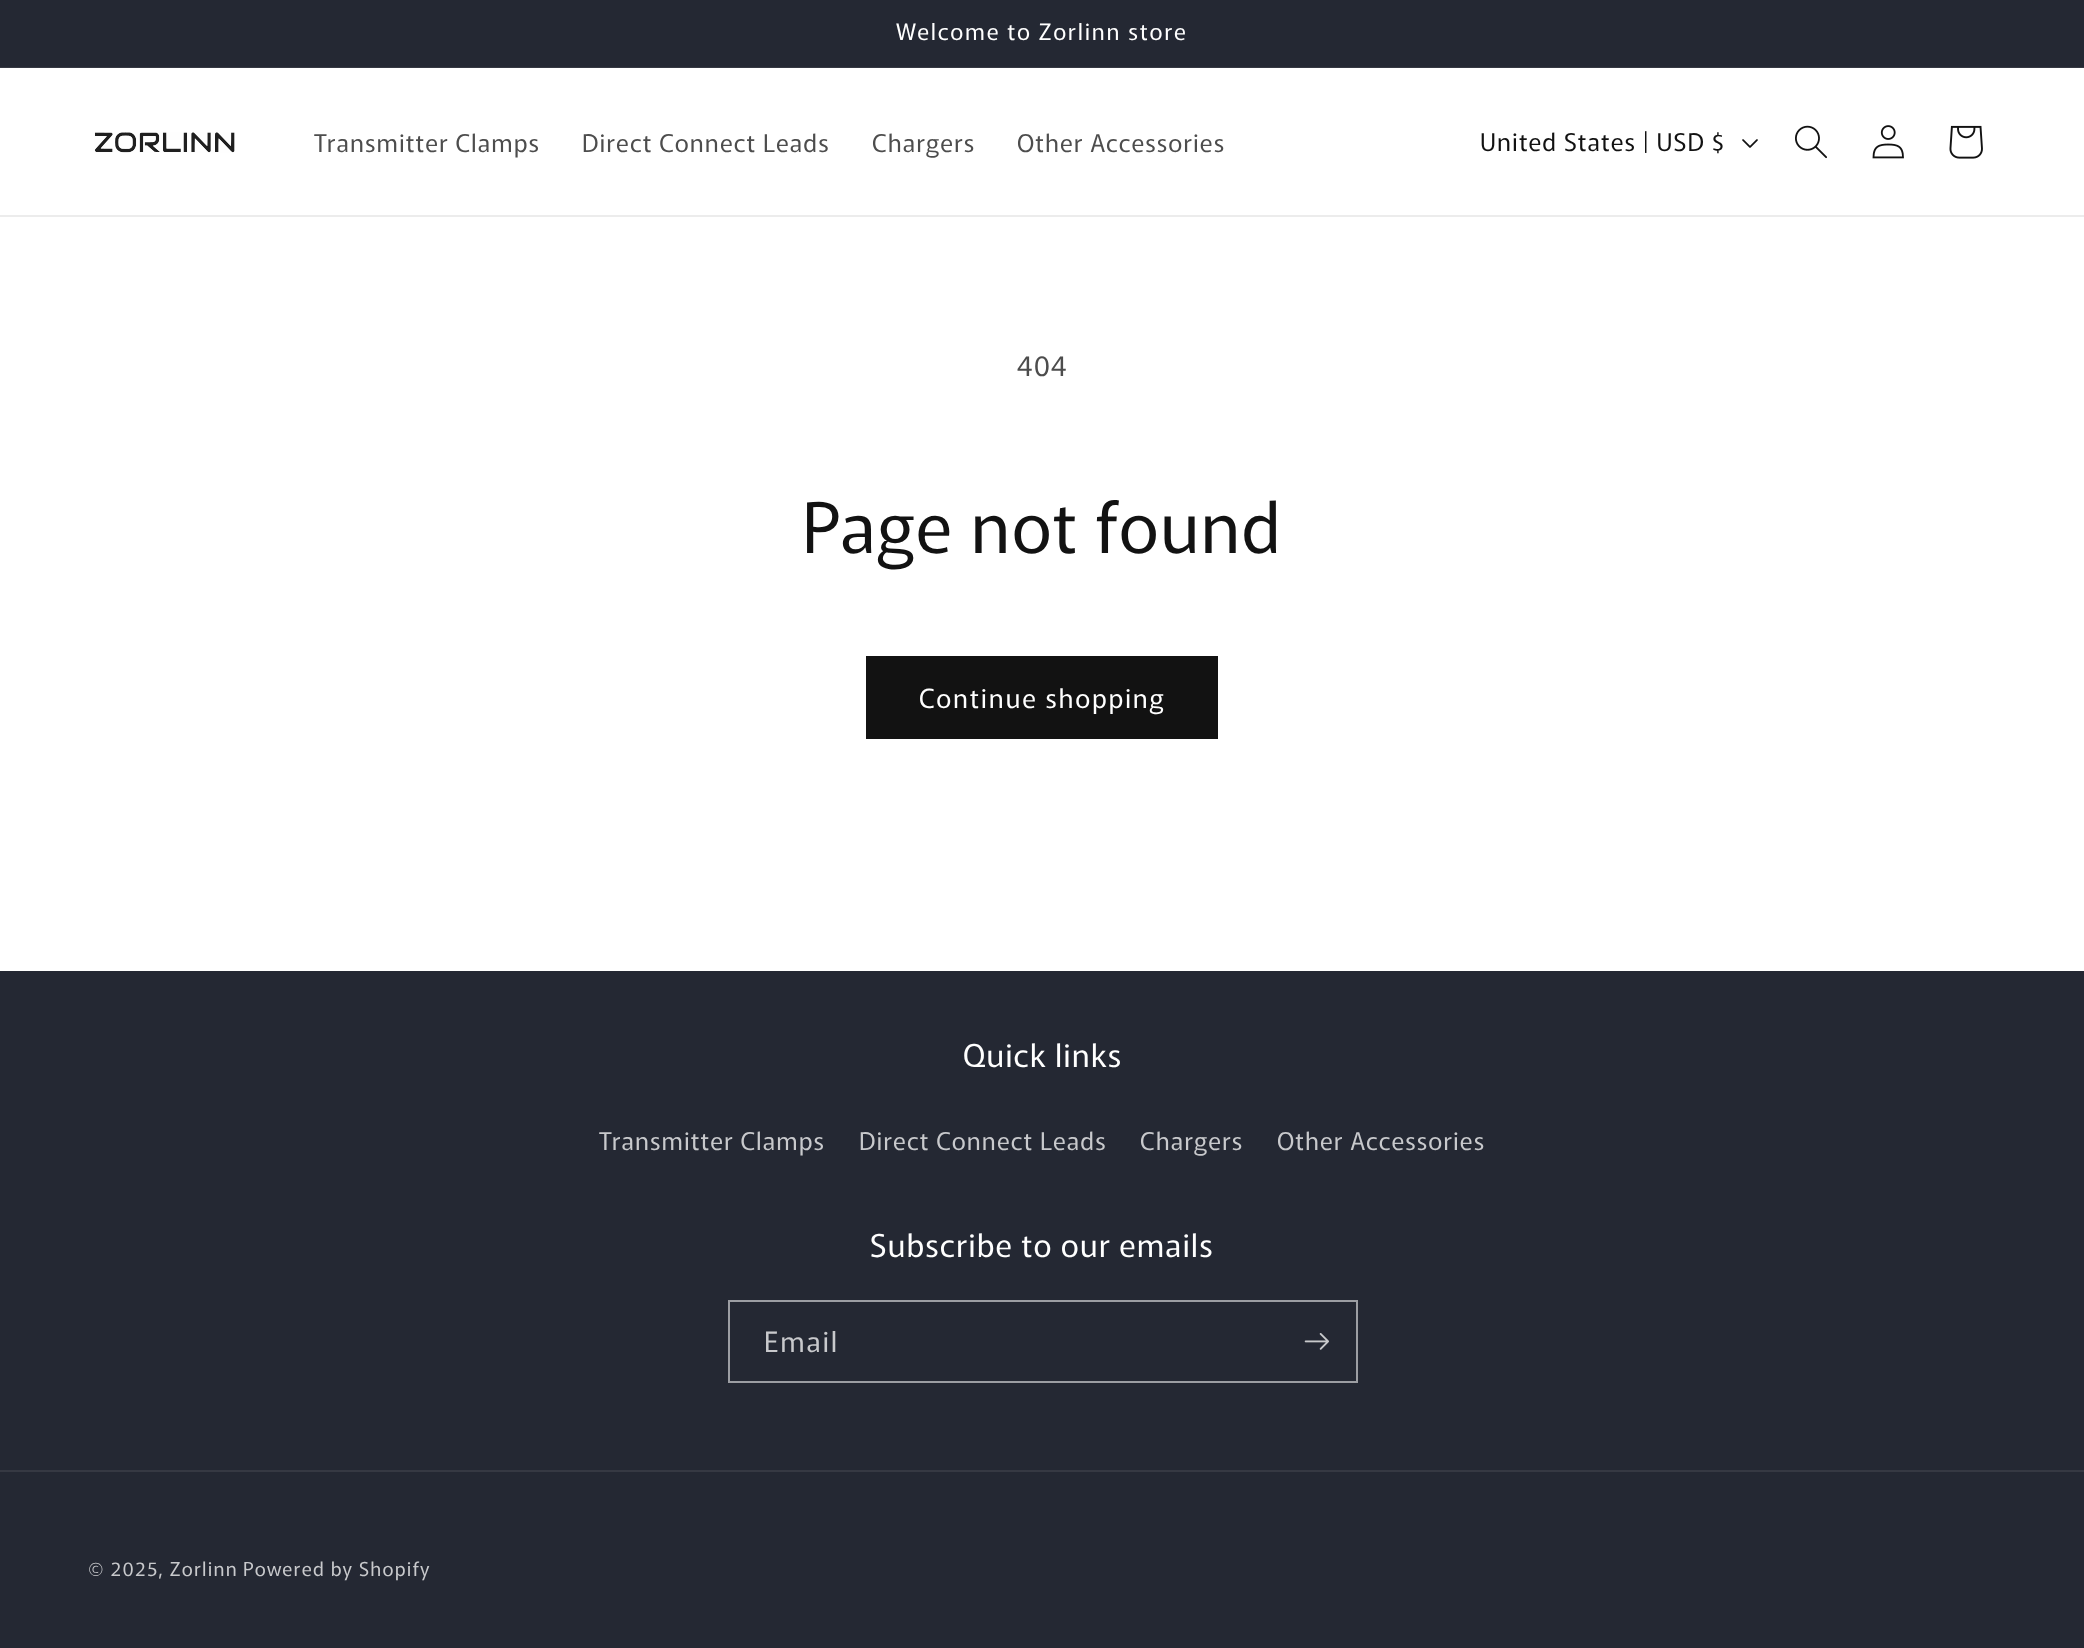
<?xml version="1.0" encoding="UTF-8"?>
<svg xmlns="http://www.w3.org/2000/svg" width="2084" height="1648">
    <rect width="100%" height="100%" fill="#FFFFFF"/>
    <rect x="0" y="0" width="2084" height="67" fill="#242833"/>
    <rect x="0" y="67" width="2084" height="1" fill="#363943"/>
    <text x="896" y="40" font-family="Murecho" font-size="22.75" letter-spacing="1.75" fill="#FFFFFF">Welcome to Zorlinn store</text>
    <rect x="0" y="215" width="2084" height="2" fill="#ECECEC"/>
    <image x="94" y="132" width="141" height="21" href="img_01.png"/>
    <text x="314" y="152" font-family="Murecho" font-size="24.5" letter-spacing="1.05" fill="#4D4D4D">Transmitter Clamps</text>
    <text x="582" y="152" font-family="Murecho" font-size="24.5" letter-spacing="1.05" fill="#4D4D4D">Direct Connect Leads</text>
    <text x="872" y="152" font-family="Murecho" font-size="24.5" letter-spacing="1.05" fill="#4D4D4D">Chargers</text>
    <text x="1017" y="152" font-family="Murecho" font-size="24.5" letter-spacing="1.05" fill="#4D4D4D">Other Accessories</text>
    <text x="1480" y="151" font-family="Murecho" font-size="24.5" letter-spacing="1.05" fill="#121212">United States | USD $</text>
    <image x="1742" y="139" width="16" height="9" href="img_02.png"/>
    <image x="1795" y="125" width="32" height="34" href="img_03.png"/>
    <image x="1872" y="125" width="32" height="34" href="img_04.png"/>
    <image x="1949" y="125" width="34" height="34" href="img_05.png"/>
    <text x="1017" y="376" font-family="Murecho" font-size="28" letter-spacing="1.05" fill="#4D4D4D">404</text>
    <text x="802" y="553" font-family="Murecho" font-size="70" letter-spacing="1.05" fill="#121212">Page not found</text>
    <rect x="866" y="656" width="352" height="83" fill="#121212"/>
    <text x="919" y="708" font-family="Murecho" font-size="26.25" letter-spacing="1.75" fill="#FFFFFF">Continue shopping</text>
    <rect x="0" y="971" width="2084" height="677" fill="#242833"/>
    <text x="963" y="1067" font-family="Murecho" font-size="31.5" letter-spacing="1.05" fill="#FFFFFF">Quick links</text>
    <text x="599" y="1150" font-family="Murecho" font-size="24.5" letter-spacing="1.05" fill="#C8C9CC">Transmitter Clamps</text>
    <text x="859" y="1150" font-family="Murecho" font-size="24.5" letter-spacing="1.05" fill="#C8C9CC">Direct Connect Leads</text>
    <text x="1140" y="1150" font-family="Murecho" font-size="24.5" letter-spacing="1.05" fill="#C8C9CC">Chargers</text>
    <text x="1277" y="1150" font-family="Murecho" font-size="24.5" letter-spacing="1.05" fill="#C8C9CC">Other Accessories</text>
    <text x="870" y="1257" font-family="Murecho" font-size="31.5" letter-spacing="1.05" fill="#FFFFFF">Subscribe to our emails</text>
    <rect x="729" y="1301" width="628" height="81" fill="none" stroke="#9C9EA3" stroke-width="2"/>
    <text x="764" y="1352" font-family="Murecho" font-size="28" letter-spacing="1.75" fill="#C8C9CC">Email</text>
    <image x="1304" y="1333" width="25" height="17" href="img_06.png"/>
    <rect x="0" y="1470" width="2084" height="2" fill="#363943"/>
    <text x="88" y="1576" font-family="Murecho" font-size="19.25" letter-spacing="1.25" fill="#C8C9CC">© 2025, Zorlinn</text>
    <text x="243" y="1576" font-family="Murecho" font-size="19.25" letter-spacing="1.25" fill="#C8C9CC">Powered by Shopify</text>
</svg>
